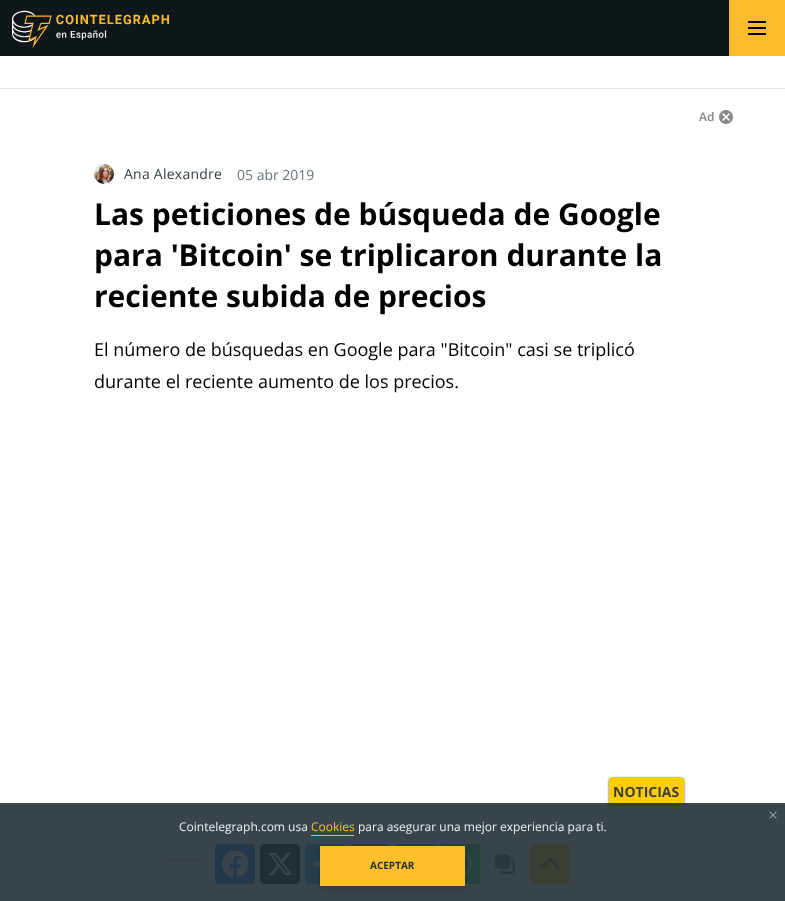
<?xml version="1.0" encoding="UTF-8"?>
<svg xmlns="http://www.w3.org/2000/svg" width="785" height="901">
    <defs>
        <filter id="blur1" x="-50%" y="-200%" width="200%" height="500%"><feGaussianBlur stdDeviation="1"/></filter>
        <filter id="blur2" x="-50%" y="-200%" width="200%" height="500%"><feGaussianBlur stdDeviation="10"/></filter>
        <filter id="blur3" x="-50%" y="-200%" width="200%" height="500%"><feGaussianBlur stdDeviation="2"/></filter>
    </defs>
    <rect width="100%" height="100%" fill="#FFFFFF"/>
    <rect x="0" y="0" width="729" height="56" fill="#10171B"/>
    <image x="12" y="10" width="158" height="38" href="img_01.png"/>
    <rect x="729" y="0" width="56" height="56" fill="#FABC2C"/>
    <image x="748" y="21" width="18" height="14" href="img_02.png"/>
    <rect x="0" y="88" width="785" height="1" fill="#DEE5E8"/>
    <text x="699" y="121" font-family="Open Sans" font-size="12" font-weight="600" fill="#888888">Ad</text>
    <image x="719" y="110" width="14" height="14" href="img_03.png"/>
    <image x="94" y="164" width="20" height="20" href="img_04.png"/>
    <text x="124" y="179" font-family="Open Sans" font-size="14" letter-spacing="0.25" fill="#303D43">Ana Alexandre</text>
    <text x="237" y="180" font-family="Open Sans" font-size="14" fill="#66747C">05 abr 2019</text>
    <text font-family="Open Sans" font-size="30" font-weight="700" fill="#000000">
        <tspan x="94" y="225">Las peticiones de búsqueda de Google</tspan>
        <tspan x="94" y="266">para 'Bitcoin' se triplicaron durante la</tspan>
        <tspan x="94" y="307">reciente subida de precios</tspan>
    </text>
    <text font-family="Open Sans" font-size="18" fill="#000000">
        <tspan x="94" y="356">El número de búsquedas en Google para "Bitcoin" casi se triplicó</tspan>
        <tspan x="94" y="388">durante el reciente aumento de los precios.</tspan>
    </text>
    <rect x="609" y="778" width="75" height="27" rx="4" fill="#000000" fill-opacity="0.75" filter="url(#blur1)"/>
    <rect x="609" y="778" width="75" height="27" rx="4" fill="#FFCD04"/>
    <text x="613" y="797" font-family="Open Sans" font-size="14" font-weight="700" fill="#3D3D3D">NOTICIAS</text>
    <rect x="169" y="859" width="42" height="1" fill="#FFBB00"/>
    <rect x="205" y="838" width="375" height="55" rx="8" fill="#000000" fill-opacity="0.15" filter="url(#blur2)"/>
    <rect x="205" y="836" width="375" height="55" rx="8" fill="#FFFFFF"/>
    <image x="215" y="844" width="40" height="40" href="img_05.png"/>
    <image x="260" y="844" width="40" height="40" href="img_06.png"/>
    <image x="305" y="844" width="40" height="40" href="img_07.png"/>
    <image x="350" y="844" width="40" height="2" href="img_08.png"/>
    <image x="395" y="844" width="40" height="2" href="img_09.png"/>
    <image x="440" y="844" width="40" height="40" href="img_10.png"/>
    <image x="485" y="844" width="40" height="40" href="img_11.png"/>
    <image x="530" y="844" width="40" height="40" href="img_12.png"/>
    <rect x="0" y="803" width="785" height="98" fill="#253137" fill-opacity="0.9"/>
    <image x="769" y="811" width="8" height="8" href="img_13.png"/>
    <text x="179" y="831" font-family="Open Sans" font-size="12" fill="#ECEFF1">Cointelegraph.com usa</text>
    <text x="311" y="831" font-family="Open Sans" font-size="12" fill="#FABF2C">Cookies</text>
    <rect x="311" y="835" width="43" height="1" fill="#FABF2C"/>
    <text x="358" y="831" font-family="Open Sans" font-size="12" fill="#ECEFF1">para asegurar una mejor experiencia para ti.</text>
    <rect x="320" y="848" width="145" height="40" fill="#000000" fill-opacity="0.2" filter="url(#blur3)"/>
    <rect x="320" y="846" width="145" height="40" fill="#FABF2B"/>
    <text x="370" y="869" font-family="Open Sans" font-size="10" font-weight="700" fill="#253137">ACEPTAR</text>
</svg>
